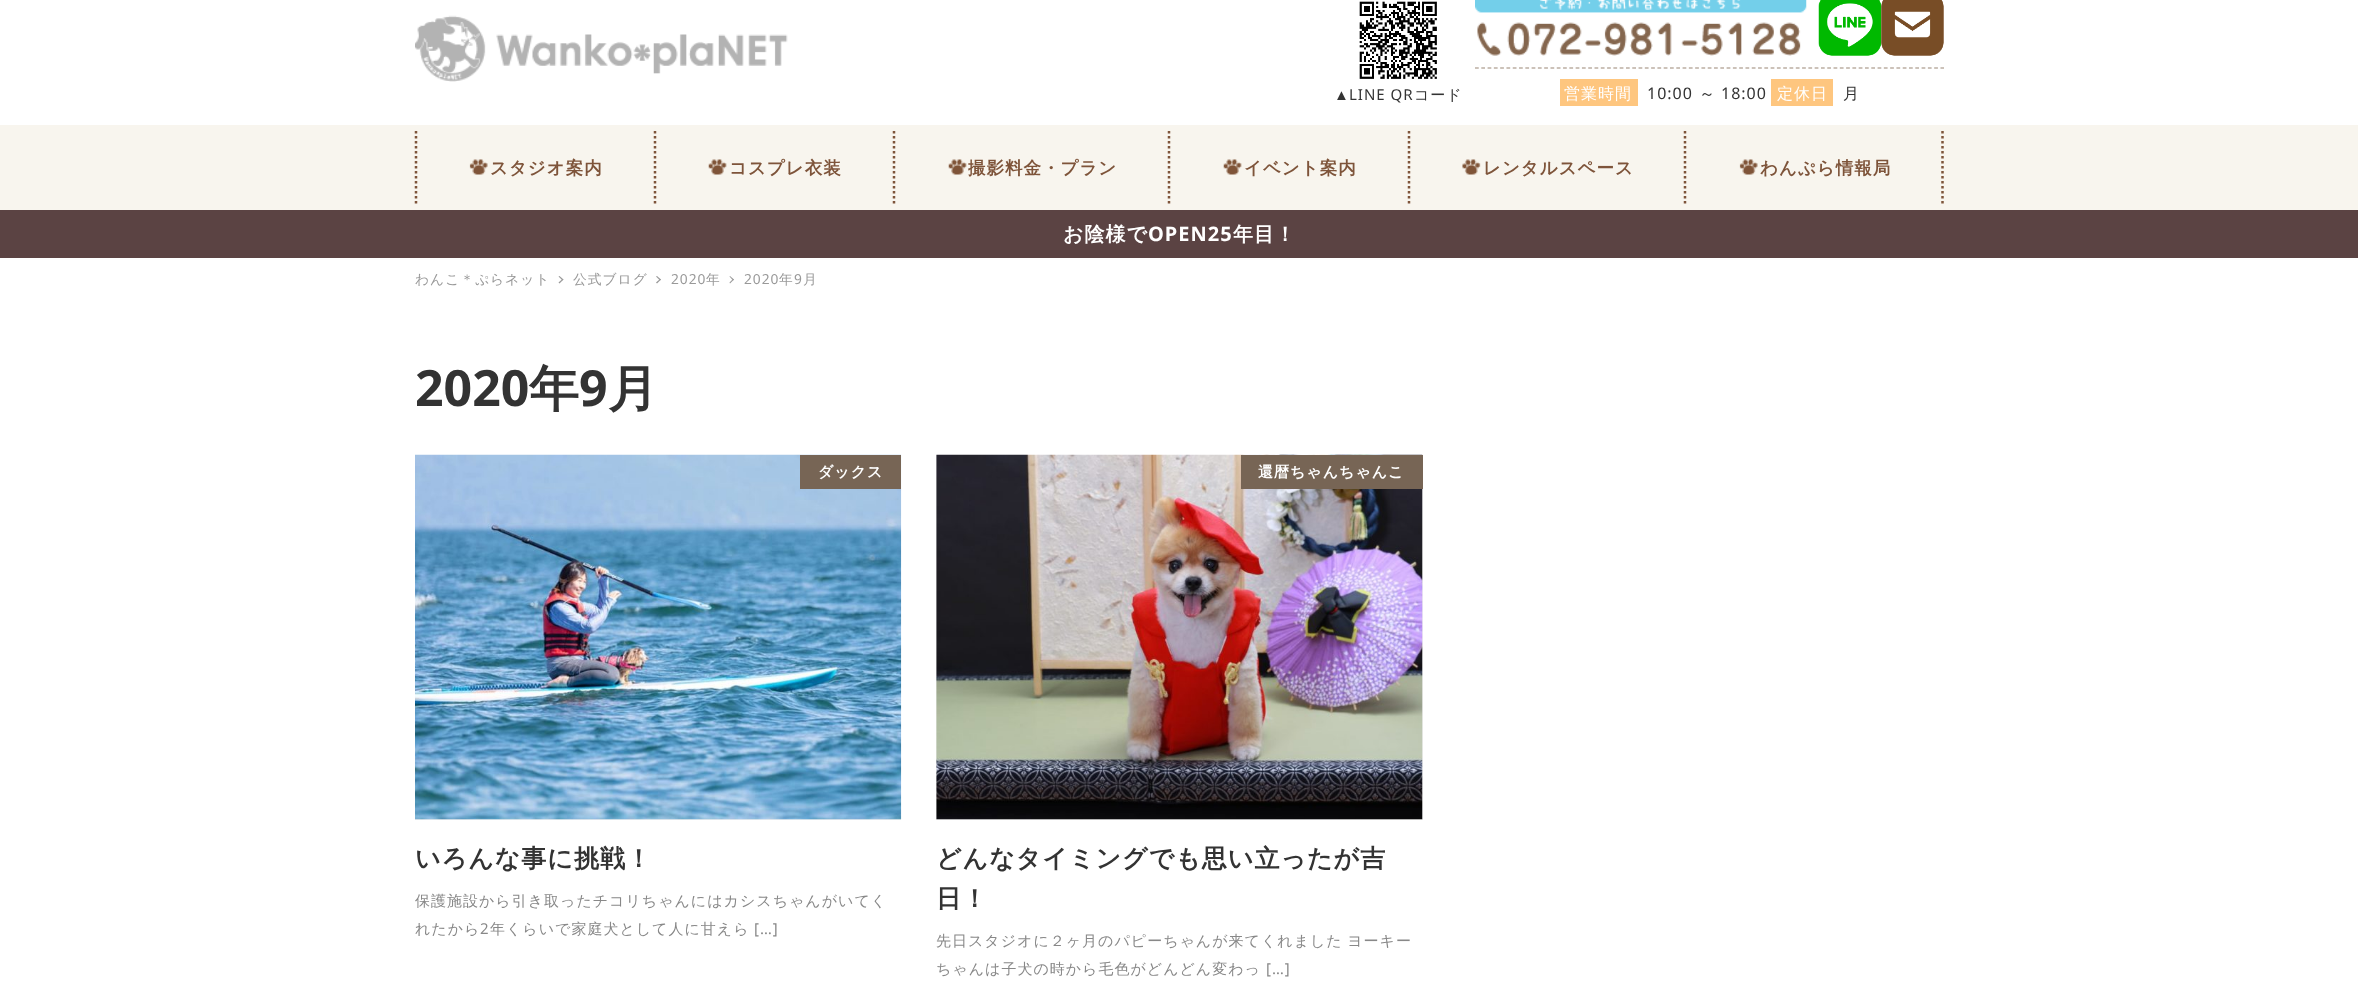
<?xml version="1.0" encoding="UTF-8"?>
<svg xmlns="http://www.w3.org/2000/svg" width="2358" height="997">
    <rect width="100%" height="100%" fill="#FFFFFF"/>
    <image x="415" y="15" width="373" height="67" href="img_01.png"/>
    <image x="1359" y="1" width="78" height="78" href="img_02.png"/>
    <text x="1334" y="100" font-family="Liberation Sans" font-size="15" letter-spacing="1" fill="#333333">▲</text>
    <text x="1349" y="100" font-family="Noto Sans" font-size="15" letter-spacing="1" fill="#333333">LINE QR</text>
    <text x="1414" y="100" font-family="WenQuanYi Zen Hei" font-size="15" font-weight="500" letter-spacing="1" fill="#333333">コード</text>
    <path d="M 1475 68 H 1944" fill="none" stroke="#998675" stroke-width="1.2" stroke-dasharray="3.75 2.54"/>
    <image x="1475" y="0" width="332" height="56" href="img_03.png"/>
    <image x="1818" y="0" width="64" height="56" href="img_04.png"/>
    <image x="1881" y="0" width="63" height="56" href="img_05.png"/>
    <rect x="1560" y="79" width="78" height="27" fill="#FEC67F"/>
    <text x="1564" y="99" font-family="WenQuanYi Zen Hei" font-size="16" font-weight="500" letter-spacing="1" fill="#FFFFFF">営業時間</text>
    <text x="1647" y="99" font-family="Noto Sans" font-size="16" letter-spacing="1" fill="#333333">10:00</text>
    <text x="1699" y="99" font-family="WenQuanYi Zen Hei" font-size="16" font-weight="500" letter-spacing="1" fill="#333333">～</text>
    <text x="1721" y="99" font-family="Noto Sans" font-size="16" letter-spacing="1" fill="#333333">18:00</text>
    <rect x="1771" y="79" width="62" height="27" fill="#FEC67F"/>
    <text x="1777" y="99" font-family="WenQuanYi Zen Hei" font-size="16" font-weight="500" letter-spacing="1" fill="#FFFFFF">定休日</text>
    <text x="1843" y="99" font-family="WenQuanYi Zen Hei" font-size="16" font-weight="500" letter-spacing="1" fill="#333333">月</text>
    <rect x="0" y="125" width="2358" height="85" fill="#F8F5EE"/>
    <path d="M 416 131 V 204" fill="none" stroke="#7E543A" stroke-width="2.5" stroke-dasharray="2.5 2.5"/>
    <image x="469" y="159" width="19" height="16" href="img_06.png"/>
    <text x="490" y="174" font-family="WenQuanYi Zen Hei" font-size="17.5" font-weight="700" letter-spacing="1" fill="#7E543A">スタジオ案内</text>
    <path d="M 655 131 V 204" fill="none" stroke="#7E543A" stroke-width="2.5" stroke-dasharray="2.5 2.5"/>
    <image x="708" y="159" width="19" height="16" href="img_07.png"/>
    <text x="729" y="174" font-family="WenQuanYi Zen Hei" font-size="17.5" font-weight="700" letter-spacing="1" fill="#7E543A">コスプレ衣装</text>
    <path d="M 894 131 V 204" fill="none" stroke="#7E543A" stroke-width="2.5" stroke-dasharray="2.5 2.5"/>
    <image x="948" y="159" width="19" height="16" href="img_07.png"/>
    <text x="968" y="174" font-family="WenQuanYi Zen Hei" font-size="17.5" font-weight="700" letter-spacing="1" fill="#7E543A">撮影料金・プラン</text>
    <path d="M 1169 131 V 204" fill="none" stroke="#7E543A" stroke-width="2.5" stroke-dasharray="2.5 2.5"/>
    <image x="1223" y="159" width="19" height="16" href="img_07.png"/>
    <text x="1244" y="174" font-family="WenQuanYi Zen Hei" font-size="17.5" font-weight="700" letter-spacing="1" fill="#7E543A">イベント案内</text>
    <path d="M 1409 131 V 204" fill="none" stroke="#7E543A" stroke-width="2.5" stroke-dasharray="2.5 2.5"/>
    <image x="1462" y="159" width="19" height="16" href="img_08.png"/>
    <text x="1483" y="174" font-family="WenQuanYi Zen Hei" font-size="17.5" font-weight="700" letter-spacing="1" fill="#7E543A">レンタルスペース</text>
    <path d="M 1942.5 131 V 204" fill="none" stroke="#7E543A" stroke-width="2.5" stroke-dasharray="2.5 2.5"/>
    <path d="M 1685 131 V 204" fill="none" stroke="#7E543A" stroke-width="2.5" stroke-dasharray="2.5 2.5"/>
    <image x="1739" y="159" width="19" height="16" href="img_06.png"/>
    <text x="1760" y="174" font-family="WenQuanYi Zen Hei" font-size="17.5" font-weight="700" letter-spacing="1" fill="#7E543A">わんぷら情報局</text>
    <rect x="0" y="210" width="2358" height="48" fill="#5B4343"/>
    <text x="1063" y="241" font-family="WenQuanYi Zen Hei" font-size="20" font-weight="700" letter-spacing="1" fill="#FFFFFF">お陰様で</text>
    <text x="1148" y="241" font-family="Noto Sans" font-size="20" font-weight="700" letter-spacing="1" fill="#FFFFFF">OPEN25</text>
    <text x="1233" y="241" font-family="WenQuanYi Zen Hei" font-size="20" font-weight="700" letter-spacing="1" fill="#FFFFFF">年目！</text>
    <text x="415" y="284" font-family="WenQuanYi Zen Hei" font-size="13.75" font-weight="500" letter-spacing="1" fill="#999999">わんこ＊ぷらネット</text>
    <path d="M 559.5 276 L 563.5 279.5 L 562.5 280.5 L 558.5 276.5 Z" fill="#999999"/>
    <path d="M 562.5 279 L 563.5 279.5 L 559.5 283.5 L 558.5 282.5 Z" fill="#999999"/>
    <text x="573" y="284" font-family="WenQuanYi Zen Hei" font-size="13.75" font-weight="500" letter-spacing="1" fill="#999999">公式ブログ</text>
    <path d="M 657 276 L 661 279.5 L 660 280.5 L 656 276.5 Z" fill="#999999"/>
    <path d="M 660 279 L 661 279.5 L 657 283.5 L 656 282.5 Z" fill="#999999"/>
    <text x="671" y="284" font-family="Noto Sans" font-size="13.75" letter-spacing="1" fill="#999999">2020</text>
    <text x="706" y="284" font-family="WenQuanYi Zen Hei" font-size="13.75" font-weight="500" letter-spacing="1" fill="#999999">年</text>
    <path d="M 730 276 L 734 279.5 L 733 280.5 L 729.5 276.5 Z" fill="#999999"/>
    <path d="M 733 279 L 734 279.5 L 730 283.5 L 729.5 282.5 Z" fill="#999999"/>
    <text x="744" y="284" font-family="Noto Sans" font-size="13.75" letter-spacing="1" fill="#999999">2020</text>
    <text x="779" y="284" font-family="WenQuanYi Zen Hei" font-size="13.75" font-weight="500" letter-spacing="1" fill="#999999">年</text>
    <text x="794" y="284" font-family="Noto Sans" font-size="13.75" letter-spacing="1" fill="#999999">9</text>
    <text x="803" y="284" font-family="WenQuanYi Zen Hei" font-size="13.75" font-weight="500" letter-spacing="1" fill="#999999">月</text>
    <text x="415" y="406" font-family="Noto Sans" font-size="50" font-weight="700" fill="#333333">2020</text>
    <text x="529" y="406" font-family="WenQuanYi Zen Hei" font-size="50" font-weight="700" fill="#333333">年</text>
    <text x="579" y="406" font-family="Noto Sans" font-size="50" font-weight="700" fill="#333333">9</text>
    <text x="608" y="406" font-family="WenQuanYi Zen Hei" font-size="50" font-weight="700" fill="#333333">月</text>
    <rect x="415" y="819" width="486" height="1" fill="#EEEEEE"/>
    <image x="415" y="454" width="487" height="366" href="img_09.png"/>
    <rect x="800" y="455" width="101" height="34" fill="#776555"/>
    <text x="818" y="477" font-family="WenQuanYi Zen Hei" font-size="15" font-weight="700" letter-spacing="1" fill="#FFFFFF">ダックス</text>
    <text x="415" y="867" font-family="WenQuanYi Zen Hei" font-size="25" font-weight="700" letter-spacing="1" fill="#333333">いろんな事に挑戦！</text>
    <text font-family="WenQuanYi Zen Hei" font-size="15" font-weight="500" letter-spacing="1" fill="#888888">
        <tspan x="415" y="906">保護施設から引き取ったチコリちゃんにはカシスちゃんがいてく</tspan>
        <tspan x="415" y="934">れたから</tspan>
    </text>
    <text x="480" y="934" font-family="Noto Sans" font-size="15" letter-spacing="1" fill="#888888">2</text>
    <text x="490" y="934" font-family="WenQuanYi Zen Hei" font-size="15" font-weight="500" letter-spacing="1" fill="#888888">年くらいで家庭犬として人に甘えら</text>
    <text x="754" y="934" font-family="Noto Sans" font-size="15" letter-spacing="1" fill="#888888">[…]</text>
    <rect x="936" y="455" width="487" height="365" fill="#EEEEEE"/>
    <image x="936" y="454" width="487" height="366" href="img_10.png"/>
    <rect x="1241" y="455" width="182" height="34" fill="#776555"/>
    <text x="1258" y="477" font-family="WenQuanYi Zen Hei" font-size="15" font-weight="700" letter-spacing="1" fill="#FFFFFF">還暦ちゃんちゃんこ</text>
    <text font-family="WenQuanYi Zen Hei" font-size="25" font-weight="700" letter-spacing="1" fill="#333333">
        <tspan x="936" y="867">どんなタイミングでも思い立ったが吉</tspan>
        <tspan x="936" y="907">日！</tspan>
    </text>
    <text font-family="WenQuanYi Zen Hei" font-size="15" font-weight="500" letter-spacing="1" fill="#888888">
        <tspan x="936" y="946" word-spacing="-1">先日スタジオに２ヶ月のパピーちゃんが来てくれました ヨーキー</tspan>
        <tspan x="936" y="974">ちゃんは子犬の時から毛色がどんどん変わっ</tspan>
    </text>
    <text x="1266" y="974" font-family="Noto Sans" font-size="15" letter-spacing="1" fill="#888888">[…]</text>
</svg>
